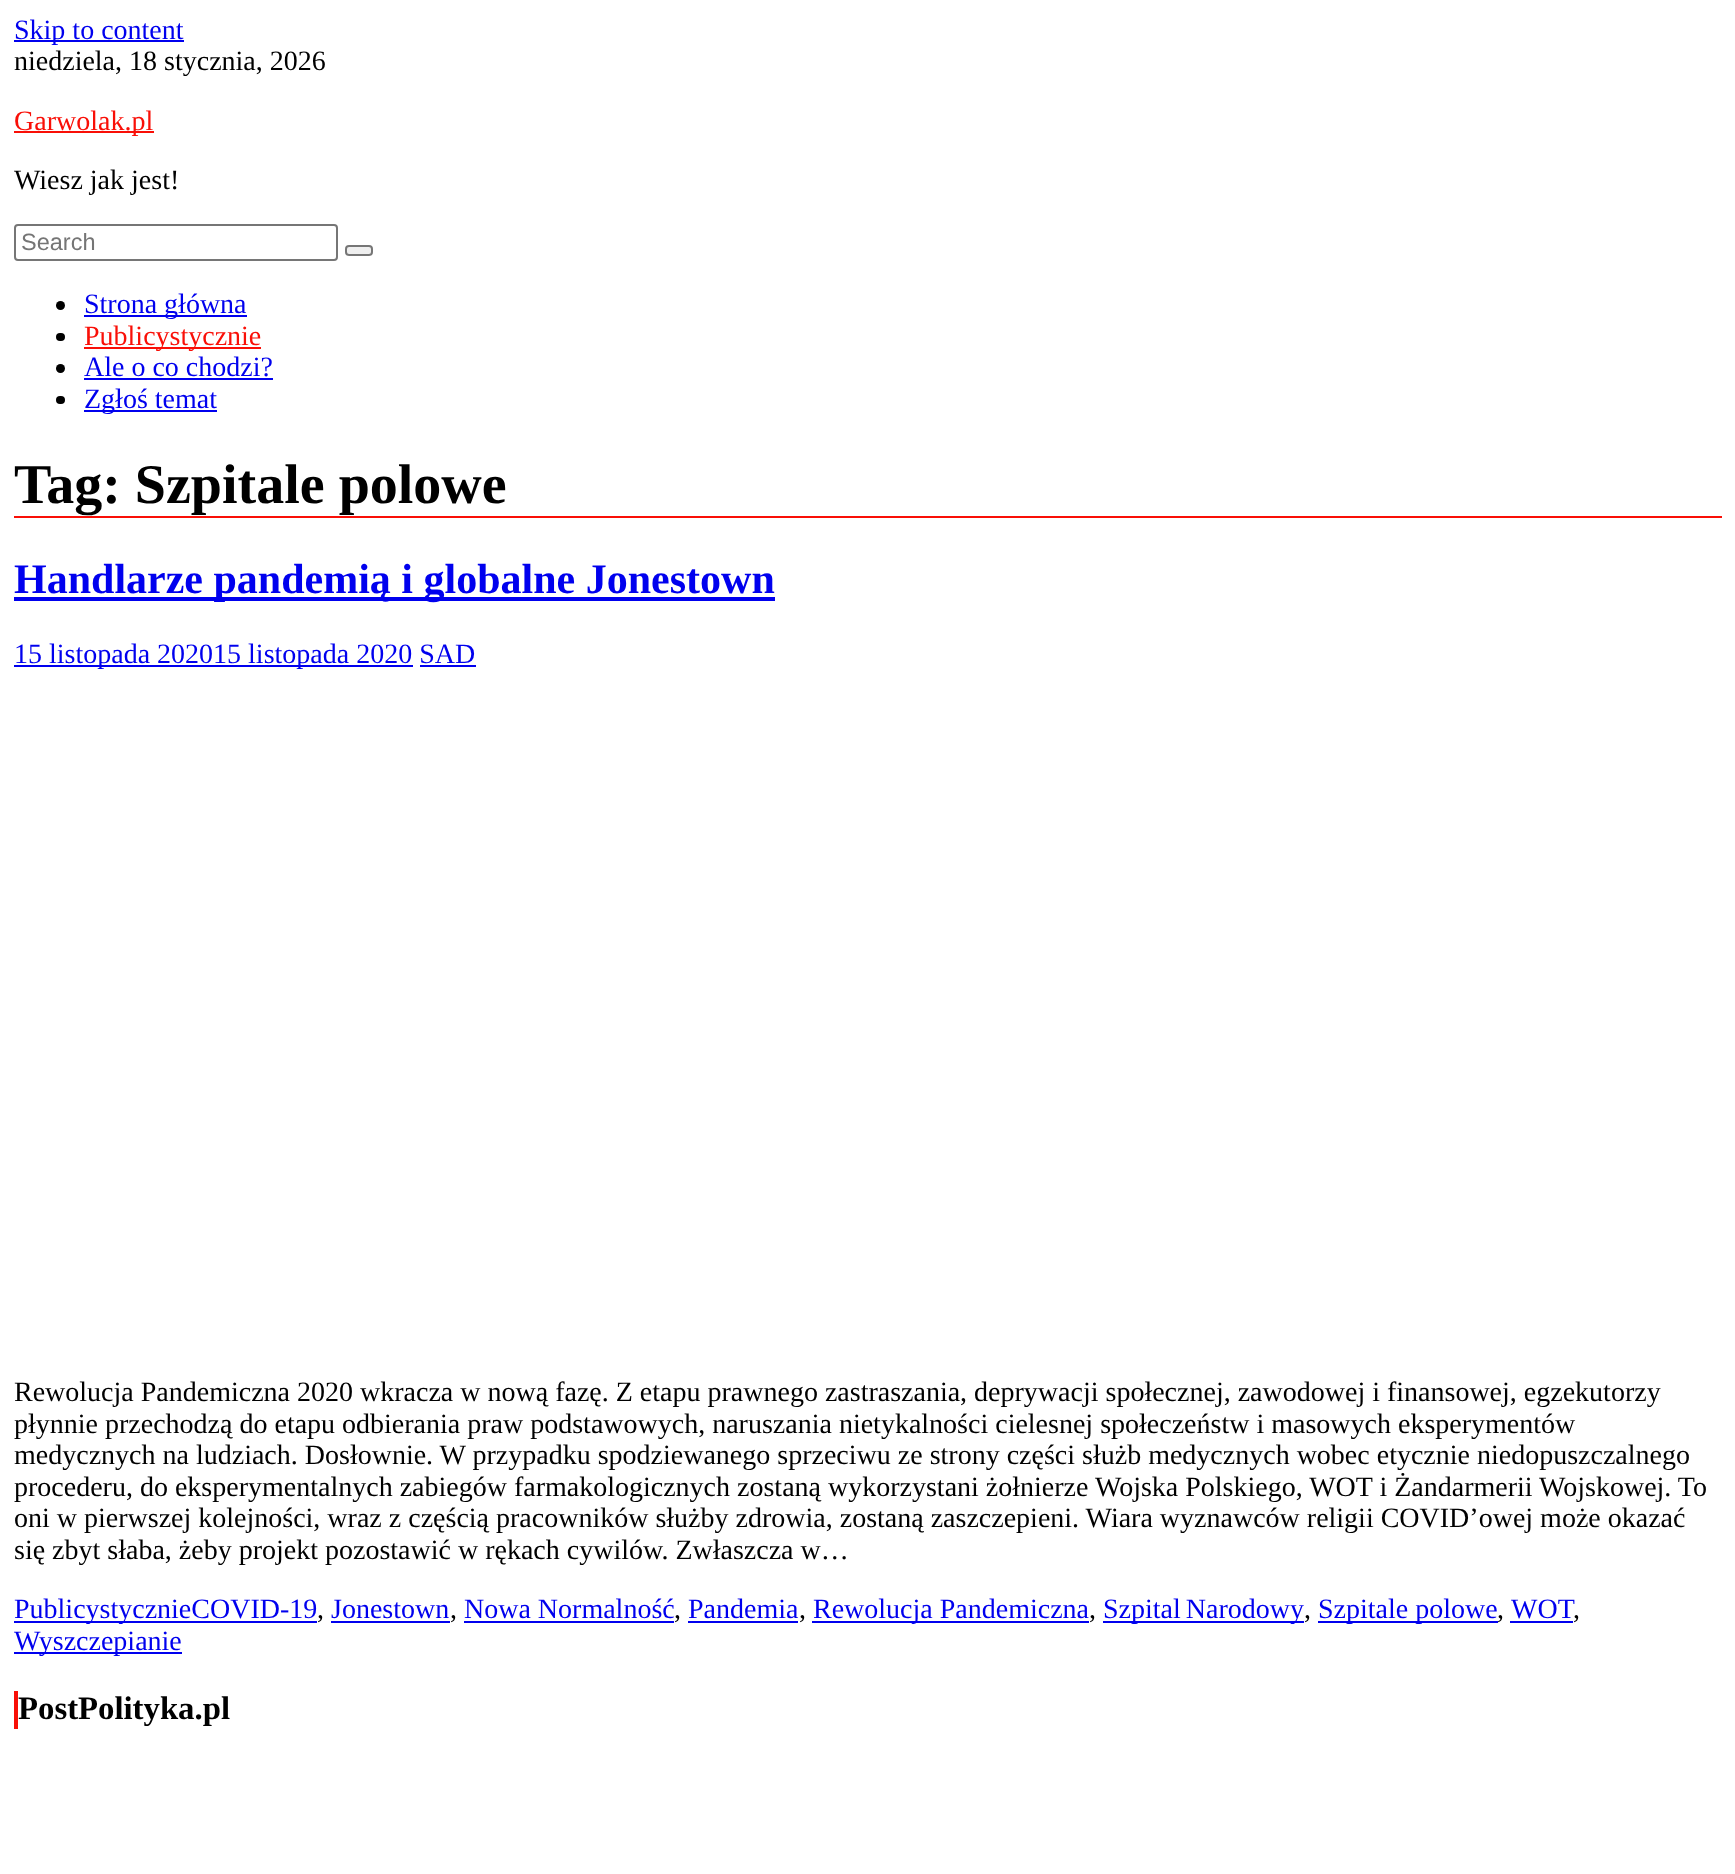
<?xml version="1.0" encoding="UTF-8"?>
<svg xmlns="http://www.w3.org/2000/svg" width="1735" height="1874">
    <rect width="100%" height="100%" fill="#FFFFFF"/>
    <rect x="14" y="40" width="170" height="2" fill="#0000EE"/>
    <text x="14" y="39" font-family="Liberation Serif" font-size="28" fill="#0000EE">Skip to content</text>
    <text x="14" y="70" font-family="Liberation Serif" font-size="28" fill="#000000">niedziela, 18 stycznia, 2026</text>
    <rect x="14" y="131" width="140" height="2" fill="#F90F07"/>
    <text x="14" y="130" font-family="Liberation Serif" font-size="28" fill="#F90F07">Garwolak.pl</text>
    <text x="14" y="189" font-family="Liberation Serif" font-size="28" fill="#000000">Wiesz jak jest!</text>
    <rect x="15" y="225" width="322" height="35" rx="3" fill="none" stroke="#767676" stroke-width="2"/>
    <text x="21" y="250" font-family="Liberation Sans" font-size="23.5" fill="#757575">Search</text>
    <rect x="346" y="246" width="26" height="9" rx="3" fill="#EFEFEF" stroke="#767676" stroke-width="2"/>
    <circle cx="60.5" cy="305.5" r="4.5" fill="#000000"/>
    <rect x="84" y="315" width="163" height="2" fill="#0000EE"/>
    <text x="84" y="313" font-family="Liberation Serif" font-size="28" fill="#0000EE">Strona główna</text>
    <rect x="56" y="333" width="9" height="8" rx="4" fill="#000000"/>
    <rect x="84" y="347" width="177" height="2" fill="#F90F07"/>
    <text x="84" y="345" font-family="Liberation Serif" font-size="28" fill="#F90F07">Publicystycznie</text>
    <circle cx="60.5" cy="368.5" r="4.5" fill="#000000"/>
    <text x="84" y="376" font-family="Liberation Serif" font-size="28" fill="#0000EE">Ale o co chodzi?</text>
    <rect x="84" y="378" width="189" height="2" fill="#0000EE"/>
    <rect x="56" y="396" width="9" height="8" rx="4" fill="#000000"/>
    <rect x="84" y="410" width="133" height="2" fill="#0000EE"/>
    <text x="84" y="408" font-family="Liberation Serif" font-size="28" fill="#0000EE">Zgłoś temat</text>
    <rect x="14" y="516" width="1708" height="2" fill="#F90F07"/>
    <text x="14" y="503" font-family="Liberation Serif" font-size="56" font-weight="700" fill="#000000">Tag: Szpitale polowe</text>
    <rect x="14" y="597" width="761" height="4" fill="#0000EE"/>
    <text x="14" y="593" font-family="Liberation Serif" font-size="42" font-weight="700" fill="#0000EE">Handlarze pandemią i globalne Jonestown</text>
    <rect x="14" y="665" width="399" height="2" fill="#0000EE"/>
    <text x="14" y="663" font-family="Liberation Serif" font-size="28" fill="#0000EE">15 listopada 202015 listopada 2020 SAD</text>
    <rect x="420" y="665" width="56" height="2" fill="#0000EE"/>
    <text font-family="Liberation Serif" font-size="28" fill="#000000">
        <tspan x="14" y="1401">Rewolucja Pandemiczna 2020 wkracza w nową fazę. Z etapu prawnego zastraszania, deprywacji społecznej, zawodowej i finansowej, egzekutorzy</tspan>
        <tspan x="14" y="1433">płynnie przechodzą do etapu odbierania praw podstawowych, naruszania nietykalności cielesnej społeczeństw i masowych eksperymentów</tspan>
        <tspan x="14" y="1464">medycznych na ludziach. Dosłownie. W przypadku spodziewanego sprzeciwu ze strony części służb medycznych wobec etycznie niedopuszczalnego</tspan>
        <tspan x="14" y="1496">procederu, do eksperymentalnych zabiegów farmakologicznych zostaną wykorzystani żołnierze Wojska Polskiego, WOT i Żandarmerii Wojskowej. To</tspan>
        <tspan x="14" y="1527">oni w pierwszej kolejności, wraz z częścią pracowników służby zdrowia, zostaną zaszczepieni. Wiara wyznawców religii COVID’owej może okazać</tspan>
        <tspan x="14" y="1559">się zbyt słaba, żeby projekt pozostawić w rękach cywilów. Zwłaszcza w…</tspan>
    </text>
    <rect x="14" y="1621" width="303" height="2" fill="#0000EE"/>
    <text x="14" y="1618" font-family="Liberation Serif" font-size="28" fill="#0000EE">PublicystycznieCOVID-19</text>
    <text x="317" y="1618" font-family="Liberation Serif" font-size="28" fill="#000000">,</text>
    <text x="331" y="1618" font-family="Liberation Serif" font-size="28" fill="#0000EE">Jonestown</text>
    <text x="450" y="1618" font-family="Liberation Serif" font-size="28" fill="#000000">,</text>
    <rect x="331" y="1621" width="119" height="2" fill="#0000EE"/>
    <text x="464" y="1618" font-family="Liberation Serif" font-size="28" fill="#0000EE">Nowa Normalność</text>
    <text x="674" y="1618" font-family="Liberation Serif" font-size="28" fill="#000000">,</text>
    <rect x="464" y="1621" width="210" height="2" fill="#0000EE"/>
    <text x="688" y="1618" font-family="Liberation Serif" font-size="28" fill="#0000EE">Pandemia</text>
    <text x="799" y="1618" font-family="Liberation Serif" font-size="28" fill="#000000">,</text>
    <rect x="688" y="1621" width="110" height="2" fill="#0000EE"/>
    <rect x="812" y="1621" width="277" height="2" fill="#0000EE"/>
    <text x="813" y="1618" font-family="Liberation Serif" font-size="28" fill="#0000EE">Rewolucja Pandemiczna</text>
    <text x="1089" y="1618" font-family="Liberation Serif" font-size="28" fill="#000000">,</text>
    <rect x="1103" y="1621" width="201" height="2" fill="#0000EE"/>
    <text x="1103" y="1618" word-spacing="-2" font-family="Liberation Serif" font-size="28" fill="#0000EE">Szpital Narodowy</text>
    <text x="1304" y="1618" font-family="Liberation Serif" font-size="28" fill="#000000">,</text>
    <rect x="1318" y="1621" width="180" height="2" fill="#0000EE"/>
    <text x="1318" y="1618" font-family="Liberation Serif" font-size="28" fill="#0000EE">Szpitale polowe</text>
    <text x="1497" y="1618" font-family="Liberation Serif" font-size="28" fill="#000000">,</text>
    <text x="1511" y="1618" font-family="Liberation Serif" font-size="28" fill="#0000EE">WOT</text>
    <text x="1573" y="1618" font-family="Liberation Serif" font-size="28" fill="#000000">,</text>
    <rect x="1510" y="1621" width="63" height="2" fill="#0000EE"/>
    <rect x="14" y="1652" width="168" height="2" fill="#0000EE"/>
    <text x="14" y="1650" font-family="Liberation Serif" font-size="28" fill="#0000EE">Wyszczepianie</text>
    <rect x="14" y="1691" width="4" height="38" fill="#F90F07"/>
    <text x="18" y="1719" font-family="Liberation Serif" font-size="32.75" font-weight="700" fill="#000000">PostPolityka.pl</text>
</svg>
